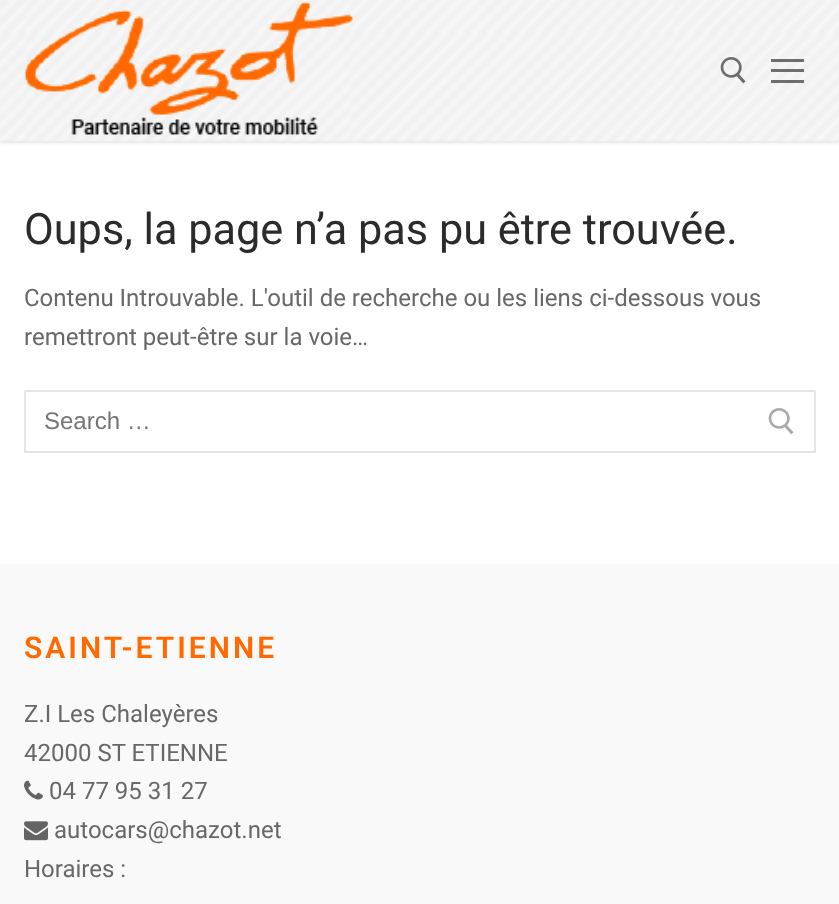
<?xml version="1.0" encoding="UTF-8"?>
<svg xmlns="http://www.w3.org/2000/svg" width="839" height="904">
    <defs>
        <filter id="blur1" x="-50%" y="-200%" width="200%" height="500%"><feGaussianBlur stdDeviation="1.5"/></filter>
    </defs>
    <rect width="100%" height="100%" fill="#FFFFFF"/>
    <rect x="0" y="2" width="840" height="141" fill="#E1E5EA" filter="url(#blur1)"/>
    <image x="0" y="0" width="839" height="141" href="img_01.png"/>
    <image x="25" y="1" width="328" height="134" href="img_02.png"/>
    <image x="720" y="57" width="26" height="27" href="img_03.png"/>
    <rect x="771" y="69" width="33" height="3" fill="#000000" fill-opacity="0.55"/>
    <rect x="771" y="59" width="33" height="3" fill="#000000" fill-opacity="0.55"/>
    <rect x="771" y="80" width="33" height="3" fill="#000000" fill-opacity="0.55"/>
    <text x="24" y="244" font-family="Roboto" font-size="43.25" fill="#2B2B2B">Oups, la page n’a pas pu être trouvée.</text>
    <text font-family="Roboto" font-size="24" fill="#686868">
        <tspan x="24" y="306">Contenu Introuvable. L'outil de recherche ou les liens ci-dessous vous</tspan>
        <tspan x="24" y="345">remettront peut-être sur la voie…</tspan>
    </text>
    <rect x="25" y="391" width="790" height="61" rx="0.5" fill="none" stroke="#E5E5E5" stroke-width="2"/>
    <text x="44" y="429" font-family="Liberation Sans" font-size="24" fill="#757575">Search …</text>
    <image x="768" y="408" width="26" height="27" href="img_04.png"/>
    <rect x="0" y="564" width="839" height="340" fill="#F9F9F9"/>
    <text x="24" y="658" font-family="Roboto" font-size="30" font-weight="600" letter-spacing="3" fill="#FF6900">SAINT-ETIENNE</text>
    <text font-family="Roboto" font-size="24" fill="#686868">
        <tspan x="24" y="722">Z.I Les Chaleyères</tspan>
        <tspan x="24" y="761">42000 ST ETIENNE</tspan>
    </text>
    <image x="24" y="780" width="19" height="20" href="img_05.png"/>
    <text x="49" y="799" font-family="Roboto" font-size="24" fill="#686868">04 77 95 31 27</text>
    <image x="24" y="821" width="24" height="20" href="img_06.png"/>
    <text x="54" y="838" font-family="Roboto" font-size="24" fill="#686868">autocars@chazot.net</text>
    <text x="24" y="877" font-family="Roboto" font-size="24" fill="#686868">Horaires :</text>
</svg>
